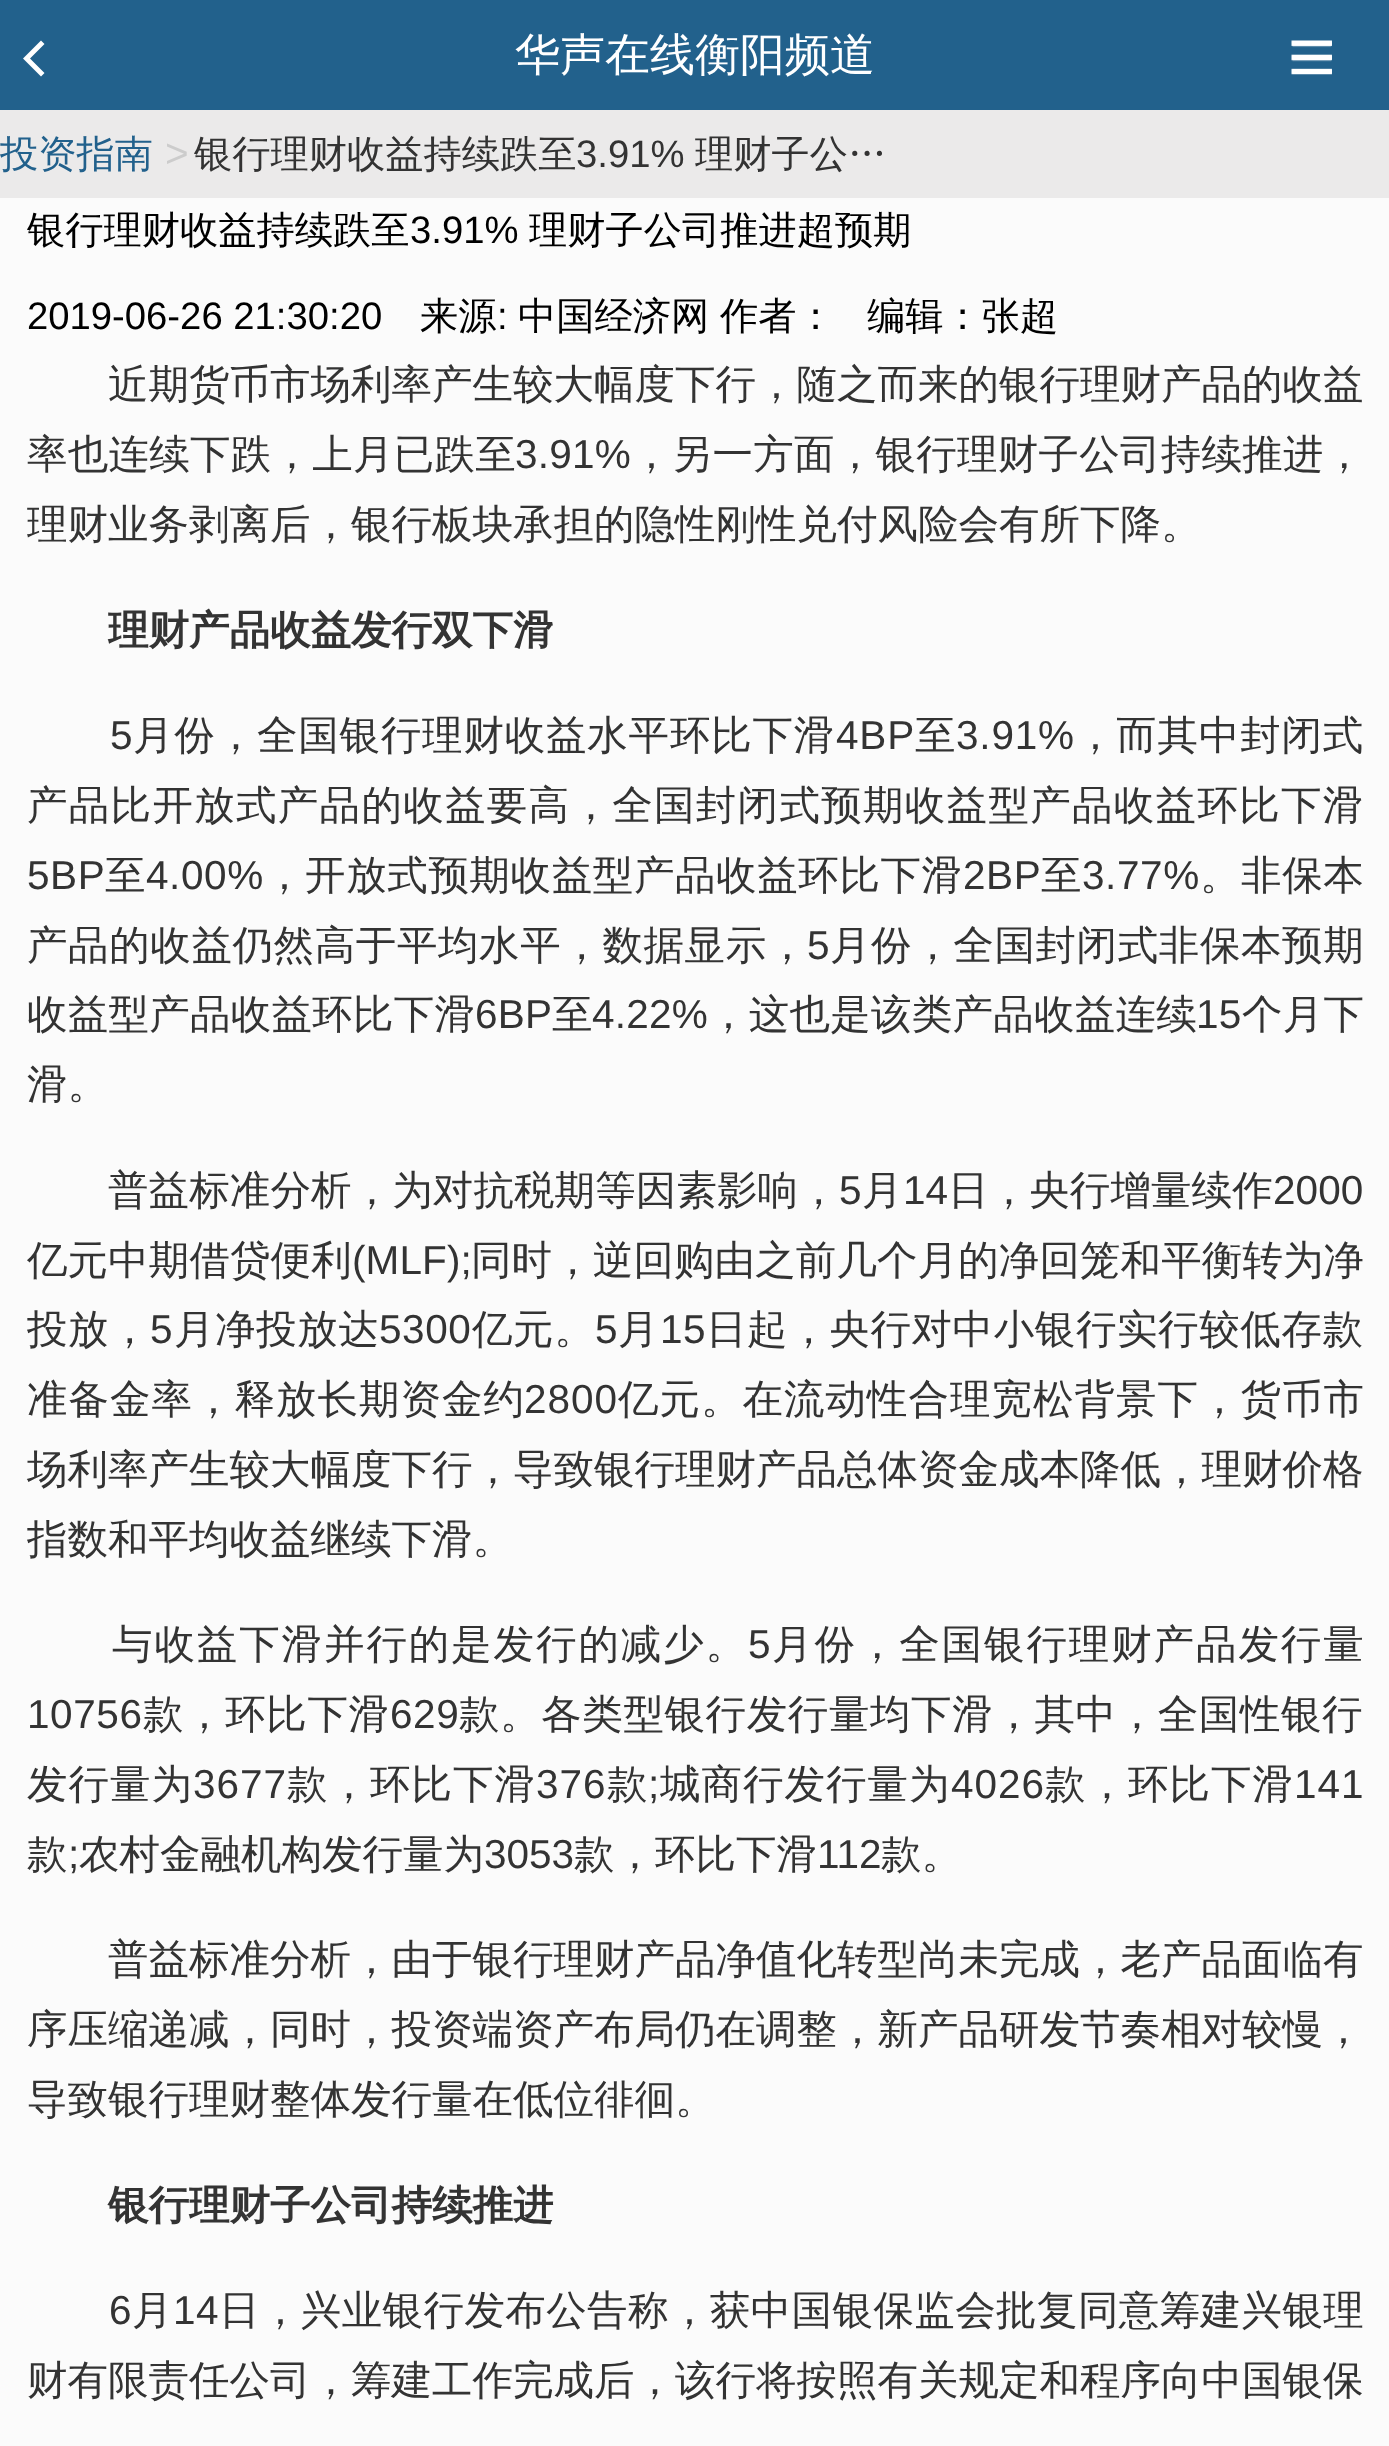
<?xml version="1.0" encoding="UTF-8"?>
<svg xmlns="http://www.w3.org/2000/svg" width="1389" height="2446">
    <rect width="100%" height="100%" fill="#FBFBFB"/>
    <rect x="0" y="0" width="1389" height="110" fill="#22618C"/>
    <path d="M 41 40.5 L 44.5 44 L 30 58.5 L 44.5 73 L 41 76.5 L 23 58.5 Z" fill="#FFFFFF"/>
    <text x="515" y="70" font-family="WenQuanYi Zen Hei" font-size="45" font-weight="500" fill="#FFFFFF">华声在线衡阳频道</text>
    <image x="1291" y="40" width="41" height="35" href="img_01.png"/>
    <rect x="0" y="110" width="1389" height="88" fill="#EBEAEA"/>
    <text x="0" y="167" font-family="WenQuanYi Zen Hei" font-size="38.25" font-weight="500" fill="#22618C">投资指南</text>
    <text x="165" y="167" font-family="Liberation Sans" font-size="40.5" fill="#CCCCCC">&gt;</text>
    <text x="194" y="167" font-family="WenQuanYi Zen Hei" font-size="38.25" font-weight="500" fill="#333333">银行理财收益持续跌至</text>
    <text x="576" y="167" font-family="Liberation Sans" font-size="38.25" fill="#333333">3.91%</text>
    <text x="695" y="167" font-family="WenQuanYi Zen Hei" font-size="38.25" font-weight="500" fill="#333333">理财子公…</text>
    <text x="27" y="243" font-family="WenQuanYi Zen Hei" font-size="38.25" font-weight="500" fill="#000000">银行理财收益持续跌至</text>
    <text x="410" y="243" font-family="Liberation Sans" font-size="38.25" fill="#000000">3.91%</text>
    <text x="529" y="243" font-family="WenQuanYi Zen Hei" font-size="38.25" font-weight="500" fill="#000000">理财子公司推进超预期</text>
    <text x="27" y="329" font-family="Liberation Sans" font-size="38.25" fill="#000000">2019-06-26 21:30:20</text>
    <text x="420" y="329" font-family="WenQuanYi Zen Hei" font-size="38.25" font-weight="500" fill="#000000">来源</text>
    <text x="497" y="329" font-family="Liberation Sans" font-size="38.25" fill="#000000">:</text>
    <text x="518" y="329" font-family="WenQuanYi Zen Hei" font-size="38.25" font-weight="500" fill="#000000">中国经济网</text>
    <text x="720" y="329" font-family="WenQuanYi Zen Hei" font-size="38.25" font-weight="500" fill="#000000">作者：</text>
    <text x="867" y="329" font-family="WenQuanYi Zen Hei" font-size="38.25" font-weight="500" fill="#000000">编辑：张超</text>
    <text x="108" y="398" font-family="WenQuanYi Zen Hei" font-size="40.5" font-weight="500" fill="#333333">近期货币市场利率产生较大幅度下行，随之而来的银行理财产品的收益</text>
    <text x="27" y="468" font-family="WenQuanYi Zen Hei" font-size="40.5" font-weight="500" letter-spacing="0.25" fill="#333333">率也连续下跌，上月已跌至</text>
    <text x="515" y="468" font-family="Liberation Sans" font-size="40.5" letter-spacing="0.25" fill="#333333">3.91%</text>
    <text x="631" y="468" font-family="WenQuanYi Zen Hei" font-size="40.5" font-weight="500" letter-spacing="0.25" fill="#333333">，另一方面，银行理财子公司持续推进，</text>
    <text x="27" y="538" font-family="WenQuanYi Zen Hei" font-size="40.5" font-weight="500" fill="#333333">理财业务剥离后，银行板块承担的隐性刚性兑付风险会有所下降。</text>
    <text x="108" y="644" font-family="WenQuanYi Zen Hei" font-size="40.5" font-weight="700" fill="#333333">理财产品收益发行双下滑</text>
    <text x="110" y="749" font-family="Liberation Sans" font-size="40.5" letter-spacing="0.8" fill="#333333">5</text>
    <text x="133" y="749" font-family="WenQuanYi Zen Hei" font-size="40.5" font-weight="500" letter-spacing="0.8" fill="#333333">月份，全国银行理财收益水平环比下滑</text>
    <text x="836" y="749" font-family="Liberation Sans" font-size="40.5" letter-spacing="0.8" fill="#333333">4BP</text>
    <text x="915" y="749" font-family="WenQuanYi Zen Hei" font-size="40.5" font-weight="500" letter-spacing="0.8" fill="#333333">至</text>
    <text x="956" y="749" font-family="Liberation Sans" font-size="40.5" letter-spacing="0.8" fill="#333333">3.91%</text>
    <text x="1075" y="749" font-family="WenQuanYi Zen Hei" font-size="40.5" font-weight="500" letter-spacing="0.8" fill="#333333">，而其中封闭式</text>
    <text x="27" y="819" font-family="WenQuanYi Zen Hei" font-size="40.5" font-weight="500" letter-spacing="1.3" fill="#333333">产品比开放式产品的收益要高，全国封闭式预期收益型产品收益环比下滑</text>
    <text x="27" y="889" font-family="Liberation Sans" font-size="40.5" letter-spacing="0.6" fill="#333333">5BP</text>
    <text x="105" y="889" font-family="WenQuanYi Zen Hei" font-size="40.5" font-weight="500" letter-spacing="0.6" fill="#333333">至</text>
    <text x="146" y="889" font-family="Liberation Sans" font-size="40.5" letter-spacing="0.6" fill="#333333">4.00%</text>
    <text x="264" y="889" font-family="WenQuanYi Zen Hei" font-size="40.5" font-weight="500" letter-spacing="0.6" fill="#333333">，开放式预期收益型产品收益环比下滑</text>
    <text x="963" y="889" font-family="Liberation Sans" font-size="40.5" letter-spacing="0.6" fill="#333333">2BP</text>
    <text x="1041" y="889" font-family="WenQuanYi Zen Hei" font-size="40.5" font-weight="500" letter-spacing="0.6" fill="#333333">至</text>
    <text x="1082" y="889" font-family="Liberation Sans" font-size="40.5" letter-spacing="0.6" fill="#333333">3.77%</text>
    <text x="1200" y="889" font-family="WenQuanYi Zen Hei" font-size="40.5" font-weight="500" letter-spacing="0.6" fill="#333333">。非保本</text>
    <text x="27" y="959" font-family="WenQuanYi Zen Hei" font-size="40.5" font-weight="500" letter-spacing="0.6" fill="#333333">产品的收益仍然高于平均水平，数据显示，</text>
    <text x="807" y="959" font-family="Liberation Sans" font-size="40.5" letter-spacing="0.6" fill="#333333">5</text>
    <text x="830" y="959" font-family="WenQuanYi Zen Hei" font-size="40.5" font-weight="500" letter-spacing="0.6" fill="#333333">月份，全国封闭式非保本预期</text>
    <text x="27" y="1028" font-family="WenQuanYi Zen Hei" font-size="40.5" font-weight="500" letter-spacing="0.25" fill="#333333">收益型产品收益环比下滑</text>
    <text x="475" y="1028" font-family="Liberation Sans" font-size="40.5" letter-spacing="0.25" fill="#333333">6BP</text>
    <text x="552" y="1028" font-family="WenQuanYi Zen Hei" font-size="40.5" font-weight="500" letter-spacing="0.25" fill="#333333">至</text>
    <text x="592" y="1028" font-family="Liberation Sans" font-size="40.5" letter-spacing="0.25" fill="#333333">4.22%</text>
    <text x="708" y="1028" font-family="WenQuanYi Zen Hei" font-size="40.5" font-weight="500" letter-spacing="0.25" fill="#333333">，这也是该类产品收益连续</text>
    <text x="1196" y="1028" font-family="Liberation Sans" font-size="40.5" letter-spacing="0.25" fill="#333333">15</text>
    <text x="1242" y="1028" font-family="WenQuanYi Zen Hei" font-size="40.5" font-weight="500" letter-spacing="0.25" fill="#333333">个月下</text>
    <text x="27" y="1098" font-family="WenQuanYi Zen Hei" font-size="40.5" font-weight="500" fill="#333333">滑。</text>
    <text x="108" y="1204" font-family="WenQuanYi Zen Hei" font-size="40.5" font-weight="500" letter-spacing="0.1" fill="#333333">普益标准分析，为对抗税期等因素影响，</text>
    <text x="839" y="1204" font-family="Liberation Sans" font-size="40.5" letter-spacing="0.1" fill="#333333">5</text>
    <text x="862" y="1204" font-family="WenQuanYi Zen Hei" font-size="40.5" font-weight="500" letter-spacing="0.1" fill="#333333">月</text>
    <text x="903" y="1204" font-family="Liberation Sans" font-size="40.5" letter-spacing="0.1" fill="#333333">14</text>
    <text x="948" y="1204" font-family="WenQuanYi Zen Hei" font-size="40.5" font-weight="500" letter-spacing="0.1" fill="#333333">日，央行增量续作</text>
    <text x="1273" y="1204" font-family="Liberation Sans" font-size="40.5" letter-spacing="0.1" fill="#333333">2000</text>
    <text x="27" y="1274" font-family="WenQuanYi Zen Hei" font-size="40.5" font-weight="500" letter-spacing="0.1" fill="#333333">亿元中期借贷便利</text>
    <text x="352" y="1274" font-family="Liberation Sans" font-size="40.5" letter-spacing="0.1" fill="#333333">(MLF);</text>
    <text x="471" y="1274" font-family="WenQuanYi Zen Hei" font-size="40.5" font-weight="500" letter-spacing="0.1" fill="#333333">同时，逆回购由之前几个月的净回笼和平衡转为净</text>
    <text x="27" y="1343" font-family="WenQuanYi Zen Hei" font-size="40.5" font-weight="500" letter-spacing="0.6" fill="#333333">投放，</text>
    <text x="150" y="1343" font-family="Liberation Sans" font-size="40.5" letter-spacing="0.6" fill="#333333">5</text>
    <text x="174" y="1343" font-family="WenQuanYi Zen Hei" font-size="40.5" font-weight="500" letter-spacing="0.6" fill="#333333">月净投放达</text>
    <text x="379" y="1343" font-family="Liberation Sans" font-size="40.5" letter-spacing="0.6" fill="#333333">5300</text>
    <text x="472" y="1343" font-family="WenQuanYi Zen Hei" font-size="40.5" font-weight="500" letter-spacing="0.6" fill="#333333">亿元。</text>
    <text x="595" y="1343" font-family="Liberation Sans" font-size="40.5" letter-spacing="0.6" fill="#333333">5</text>
    <text x="618" y="1343" font-family="WenQuanYi Zen Hei" font-size="40.5" font-weight="500" letter-spacing="0.6" fill="#333333">月</text>
    <text x="660" y="1343" font-family="Liberation Sans" font-size="40.5" letter-spacing="0.6" fill="#333333">15</text>
    <text x="706" y="1343" font-family="WenQuanYi Zen Hei" font-size="40.5" font-weight="500" letter-spacing="0.6" fill="#333333">日起，央行对中小银行实行较低存款</text>
    <text x="27" y="1413" font-family="WenQuanYi Zen Hei" font-size="40.5" font-weight="500" letter-spacing="1" fill="#333333">准备金率，释放长期资金约</text>
    <text x="524" y="1413" font-family="Liberation Sans" font-size="40.5" letter-spacing="1" fill="#333333">2800</text>
    <text x="618" y="1413" font-family="WenQuanYi Zen Hei" font-size="40.5" font-weight="500" letter-spacing="1" fill="#333333">亿元。在流动性合理宽松背景下，货币市</text>
    <text font-family="WenQuanYi Zen Hei" font-size="40.5" font-weight="500" fill="#333333">
        <tspan x="27" y="1483">场利率产生较大幅度下行，导致银行理财产品总体资金成本降低，理财价格</tspan>
        <tspan x="27" y="1553">指数和平均收益继续下滑。</tspan>
    </text>
    <text x="112" y="1658" font-family="WenQuanYi Zen Hei" font-size="40.5" font-weight="500" letter-spacing="1.9" fill="#333333">与收益下滑并行的是发行的减少。</text>
    <text x="748" y="1658" font-family="Liberation Sans" font-size="40.5" letter-spacing="1.9" fill="#333333">5</text>
    <text x="772" y="1658" font-family="WenQuanYi Zen Hei" font-size="40.5" font-weight="500" letter-spacing="1.9" fill="#333333">月份，全国银行理财产品发行量</text>
    <text x="27" y="1728" font-family="Liberation Sans" font-size="40.5" letter-spacing="0.6" fill="#333333">10756</text>
    <text x="143" y="1728" font-family="WenQuanYi Zen Hei" font-size="40.5" font-weight="500" letter-spacing="0.6" fill="#333333">款，环比下滑</text>
    <text x="390" y="1728" font-family="Liberation Sans" font-size="40.5" letter-spacing="0.6" fill="#333333">629</text>
    <text x="459" y="1728" font-family="WenQuanYi Zen Hei" font-size="40.5" font-weight="500" letter-spacing="0.6" fill="#333333">款。各类型银行发行量均下滑，其中，全国性银行</text>
    <text x="27" y="1798" font-family="WenQuanYi Zen Hei" font-size="40.5" font-weight="500" letter-spacing="1" fill="#333333">发行量为</text>
    <text x="193" y="1798" font-family="Liberation Sans" font-size="40.5" letter-spacing="1" fill="#333333">3677</text>
    <text x="287" y="1798" font-family="WenQuanYi Zen Hei" font-size="40.5" font-weight="500" letter-spacing="1" fill="#333333">款，环比下滑</text>
    <text x="536" y="1798" font-family="Liberation Sans" font-size="40.5" letter-spacing="1" fill="#333333">376</text>
    <text x="607" y="1798" font-family="WenQuanYi Zen Hei" font-size="40.5" font-weight="500" letter-spacing="1" fill="#333333">款</text>
    <text x="648" y="1798" font-family="Liberation Sans" font-size="40.5" letter-spacing="1" fill="#333333">;</text>
    <text x="660" y="1798" font-family="WenQuanYi Zen Hei" font-size="40.5" font-weight="500" letter-spacing="1" fill="#333333">城商行发行量为</text>
    <text x="951" y="1798" font-family="Liberation Sans" font-size="40.5" letter-spacing="1" fill="#333333">4026</text>
    <text x="1045" y="1798" font-family="WenQuanYi Zen Hei" font-size="40.5" font-weight="500" letter-spacing="1" fill="#333333">款，环比下滑</text>
    <text x="1294" y="1798" font-family="Liberation Sans" font-size="40.5" letter-spacing="1" fill="#333333">141</text>
    <text x="27" y="1868" font-family="WenQuanYi Zen Hei" font-size="40.5" font-weight="500" fill="#333333">款</text>
    <text x="68" y="1868" font-family="Liberation Sans" font-size="40.5" fill="#333333">;</text>
    <text x="79" y="1868" font-family="WenQuanYi Zen Hei" font-size="40.5" font-weight="500" fill="#333333">农村金融机构发行量为</text>
    <text x="484" y="1868" font-family="Liberation Sans" font-size="40.5" fill="#333333">3053</text>
    <text x="574" y="1868" font-family="WenQuanYi Zen Hei" font-size="40.5" font-weight="500" fill="#333333">款，环比下滑</text>
    <text x="817" y="1868" font-family="Liberation Sans" font-size="40.5" fill="#333333">112</text>
    <text x="881" y="1868" font-family="WenQuanYi Zen Hei" font-size="40.5" font-weight="500" fill="#333333">款。</text>
    <text x="108" y="1973" font-family="WenQuanYi Zen Hei" font-size="40.5" font-weight="500" fill="#333333">普益标准分析，由于银行理财产品净值化转型尚未完成，老产品面临有</text>
    <text font-family="WenQuanYi Zen Hei" font-size="40.5" font-weight="500" fill="#333333">
        <tspan x="27" y="2043">序压缩递减，同时，投资端资产布局仍在调整，新产品研发节奏相对较慢，</tspan>
        <tspan x="27" y="2113">导致银行理财整体发行量在低位徘徊。</tspan>
    </text>
    <text x="108" y="2219" font-family="WenQuanYi Zen Hei" font-size="40.5" font-weight="700" fill="#333333">银行理财子公司持续推进</text>
    <text x="109" y="2324" font-family="Liberation Sans" font-size="40.5" letter-spacing="0.4" fill="#333333">6</text>
    <text x="132" y="2324" font-family="WenQuanYi Zen Hei" font-size="40.5" font-weight="500" letter-spacing="0.4" fill="#333333">月</text>
    <text x="173" y="2324" font-family="Liberation Sans" font-size="40.5" letter-spacing="0.4" fill="#333333">14</text>
    <text x="219" y="2324" font-family="WenQuanYi Zen Hei" font-size="40.5" font-weight="500" letter-spacing="0.4" fill="#333333">日，兴业银行发布公告称，获中国银保监会批复同意筹建兴银理</text>
    <text x="27" y="2394" font-family="WenQuanYi Zen Hei" font-size="40.5" font-weight="500" fill="#333333">财有限责任公司，筹建工作完成后，该行将按照有关规定和程序向中国银保</text>
</svg>
